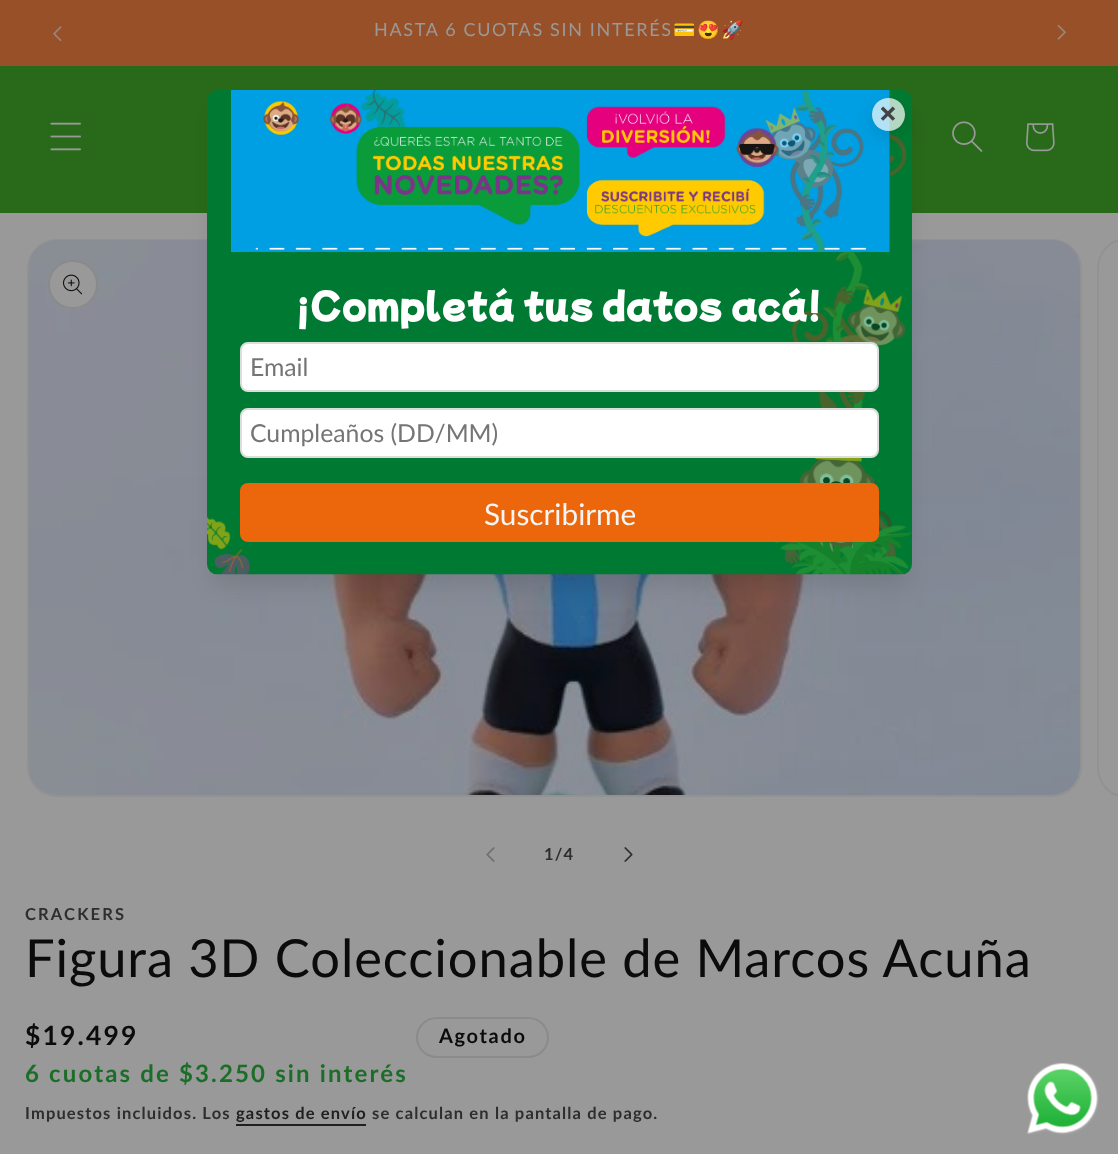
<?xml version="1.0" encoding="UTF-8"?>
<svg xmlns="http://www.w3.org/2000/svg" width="1118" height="1154">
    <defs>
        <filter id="blur1" x="-50%" y="-200%" width="200%" height="500%"><feGaussianBlur stdDeviation="11"/></filter>
        <clipPath id="clip1"><path d="M 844 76 H 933 V 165 H 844 Z M 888.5 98 C 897.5 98 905 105.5 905 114.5 C 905 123.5 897.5 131 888.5 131 C 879.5 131 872 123.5 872 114.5 C 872 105.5 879.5 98 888.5 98 Z" clip-rule="evenodd"/></clipPath>
        <filter id="blur2" x="-50%" y="-200%" width="200%" height="500%"><feGaussianBlur stdDeviation="9"/></filter>
    </defs>
    <rect width="100%" height="100%" fill="#999999"/>
    <rect x="0" y="0" width="1118" height="66" fill="#975028"/>
    <image x="53" y="26" width="9" height="16" href="img_01.png"/>
    <text x="374" y="36" font-family="Lato" font-size="18" letter-spacing="1.65" fill="#999999">HASTA 6 CUOTAS SIN INTERÉS</text>
    <text x="673" y="36" font-family="Noto Color Emoji" font-size="18" letter-spacing="1.65" fill="#999999">💳😍🚀</text>
    <image x="1057" y="24" width="9" height="16" href="img_02.png"/>
    <rect x="0" y="66" width="1118" height="147" fill="#286A19"/>
    <image x="50" y="122" width="31" height="29" href="img_03.png"/>
    <image x="952" y="121" width="31" height="31" href="img_04.png"/>
    <image x="1026" y="123" width="29" height="29" href="img_05.png"/>
    <rect x="28" y="240" width="1053" height="556" rx="29" fill="none" stroke="#929292" stroke-width="2"/>
    <image x="28" y="240" width="1052" height="555" href="img_08.png"/>
    <rect x="212" y="110" width="696" height="475" rx="6" fill="#000000" fill-opacity="0.1" filter="url(#blur1)"/>
    <image x="207" y="90" width="705" height="485" href="img_06.png"/>
    <image x="231" y="90" width="659" height="162" href="img_07.png"/>
    <g clip-path="url(#clip1)">
        <rect x="872" y="104" width="33" height="33" rx="16.5" fill="#000000" fill-opacity="0.1" filter="url(#blur2)"/>
    </g>
    <circle cx="888.5" cy="114.5" r="16.5" fill="#FFFFFF" fill-opacity="0.7"/>
    <text x="879" y="123" font-family="DejaVu Sans Mono" font-size="29.75" font-weight="700" letter-spacing="1" fill="#444444">×</text>
    <text x="296" y="319" font-family="Mochiy Pop One" font-size="34.6" font-weight="700" letter-spacing="1" fill="#FFFFFF">¡Completá tus datos acá!</text>
    <rect x="241" y="343" width="637" height="48" rx="7" fill="#FFFFFF" stroke="#DDDDDD" stroke-width="2"/>
    <text x="250" y="376" font-family="Lato" font-size="24.75" fill="#757575">Email</text>
    <rect x="241" y="409" width="637" height="48" rx="7" fill="#FFFFFF" stroke="#DDDDDD" stroke-width="2"/>
    <text x="250" y="442" font-family="Lato" font-size="24.75" fill="#757575">Cumpleaños (DD/MM)</text>
    <rect x="240" y="483" width="639" height="59" rx="8" fill="#EC660B"/>
    <text x="484" y="525" font-family="Lato" font-size="29.75" fill="#F5F5F5">Suscribirme</text>
    <rect x="48" y="260" width="50" height="49" rx="24.5" fill="#999999"/>
    <rect x="49" y="261" width="48" height="47" rx="23.5" fill="none" stroke="#0B0B0B" stroke-opacity="0.1" stroke-width="2"/>
    <image x="63" y="274" width="20" height="21" href="img_09.png"/>
    <rect x="1098" y="240" width="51" height="556" rx="29" fill="none" stroke="#929292" stroke-width="2"/>
    <image x="486" y="847" width="9" height="15" href="img_10.png"/>
    <text x="544" y="860" font-family="Lato" font-size="16.5" font-weight="700" letter-spacing="1.15" fill="#2E2E2E">1/4</text>
    <image x="624" y="847" width="9" height="15" href="img_11.png"/>
    <text x="25" y="920" font-family="Lato" font-size="16.5" font-weight="700" letter-spacing="2.15" fill="#2E2E2E">CRACKERS</text>
    <text x="25" y="977" font-family="Lato" font-size="52.5" letter-spacing="0.9" fill="#0B0B0B">Figura 3D Coleccionable de Marcos Acuña</text>
    <text x="25" y="1045" font-family="Lato" font-size="26.5" font-weight="700" letter-spacing="2.15" fill="#0B0B0B">$19.499</text>
    <text x="25" y="1082" font-family="Lato" font-size="24" font-weight="700" letter-spacing="2.15" fill="#1B6E28">6 cuotas de $3.250 sin interés</text>
    <rect x="417" y="1018" width="131" height="39" rx="19.5" fill="none" stroke="#8B8B8B" stroke-width="2"/>
    <text x="439" y="1043" font-family="Lato" font-size="20" font-weight="700" letter-spacing="1.65" fill="#0B0B0B">Agotado</text>
    <text x="25" y="1119" font-family="Lato" font-size="16.5" font-weight="700" letter-spacing="1.15" fill="#2E2E2E">Impuestos incluidos. Los</text>
    <text x="236" y="1119" font-family="Lato" font-size="16.5" font-weight="700" letter-spacing="1.15" fill="#202020">gastos de envío</text>
    <rect x="236" y="1124" width="130" height="2" fill="#202020"/>
    <text x="372" y="1119" font-family="Lato" font-size="16.5" font-weight="700" letter-spacing="1.15" fill="#2E2E2E">se calculan en la pantalla de pago.</text>
    <image x="1027" y="1062" width="72" height="73" href="img_12.png"/>
</svg>
